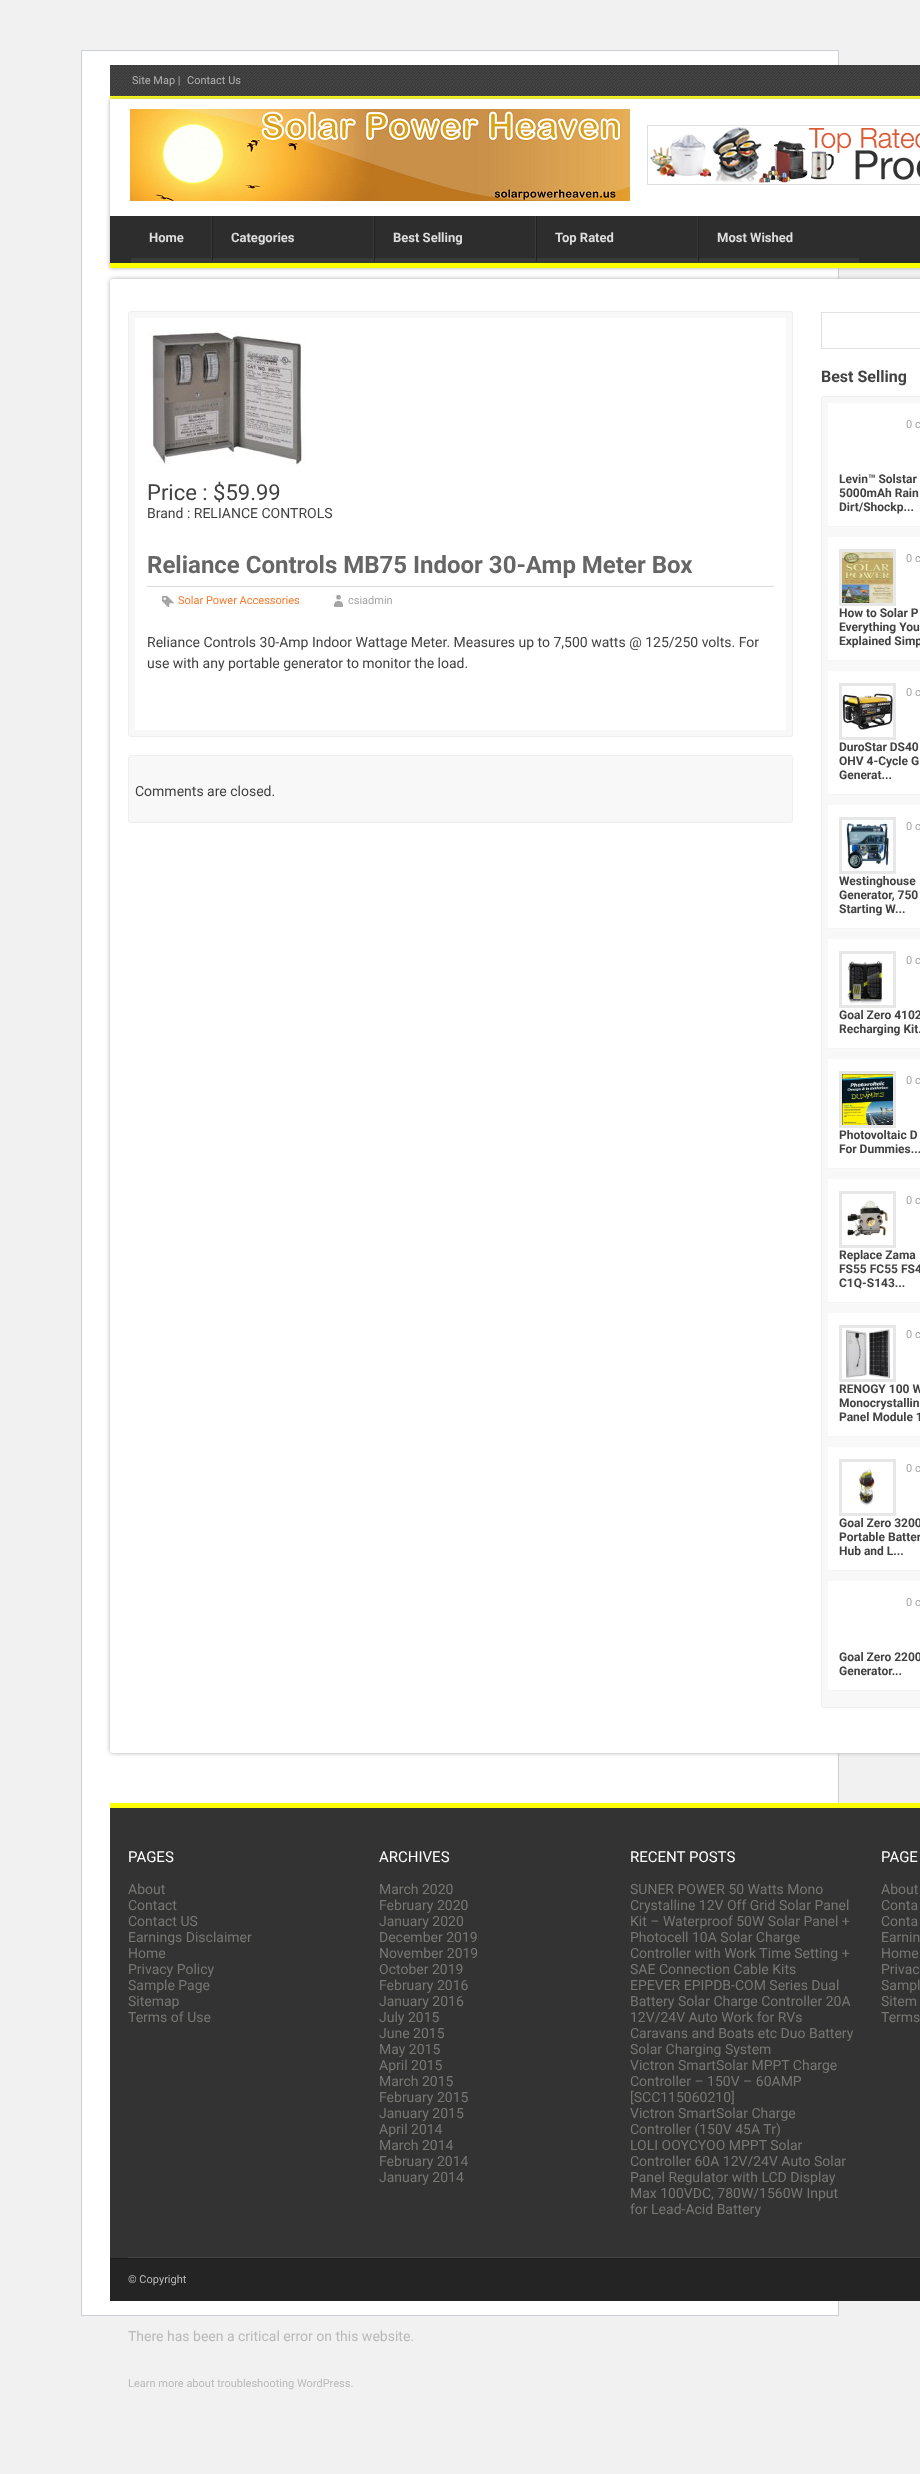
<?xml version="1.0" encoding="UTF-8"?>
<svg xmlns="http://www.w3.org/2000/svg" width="920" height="2474">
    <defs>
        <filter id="blur1" x="-50%" y="-200%" width="200%" height="500%"><feGaussianBlur stdDeviation="2"/></filter>
    </defs>
    <rect width="100%" height="100%" fill="#F1F1F1"/>
    <rect x="81.5" y="50.5" width="757" height="2265" fill="#FFFFFF" stroke="#CCD0D4"/>
    <image x="110" y="65" width="810" height="31" href="img_01.png"/>
    <rect x="110" y="96" width="810" height="3" fill="#FFFF00"/>
    <text x="132" y="84" font-family="Roboto" font-size="11" fill="#B3B2B2">Site Map |</text>
    <text x="187" y="84" font-family="Roboto" font-size="11" fill="#B3B2B2">Contact Us</text>
    <rect x="110" y="99" width="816" height="169" fill="#AAAAAA" filter="url(#blur1)"/>
    <rect x="110" y="99" width="810" height="117" fill="#FFFFFF"/>
    <image x="130" y="109" width="500" height="92" href="img_02.png"/>
    <image x="647" y="125" width="273" height="60" href="img_03.png"/>
    <rect x="110" y="216" width="810" height="47" fill="#2D2D2D"/>
    <rect x="110" y="263" width="810" height="5" fill="#FFFF00"/>
    <rect x="211" y="216" width="1" height="47" fill="#393939"/>
    <rect x="131" y="258" width="81" height="5" fill="#393939"/>
    <text x="149" y="242" font-family="Roboto" font-size="13" font-weight="700" fill="#DDDDDD">Home</text>
    <rect x="373" y="216" width="1" height="47" fill="#393939"/>
    <path d="M 374 263 H 212 L 213 258 H 373 Z" fill="#393939"/>
    <path d="M 212 263 V 216 H 213 V 258 Z" fill="#222222"/>
    <text x="231" y="242" font-family="Roboto" font-size="13" font-weight="700" fill="#DDDDDD">Categories</text>
    <rect x="535" y="216" width="1" height="47" fill="#393939"/>
    <path d="M 536 263 H 374 L 375 258 H 535 Z" fill="#393939"/>
    <path d="M 374 263 V 216 H 375 V 258 Z" fill="#222222"/>
    <text x="393" y="242" font-family="Roboto" font-size="13" font-weight="700" fill="#DDDDDD">Best Selling</text>
    <rect x="697" y="216" width="1" height="47" fill="#393939"/>
    <path d="M 698 263 H 536 L 537 258 H 697 Z" fill="#393939"/>
    <path d="M 536 263 V 216 H 537 V 258 Z" fill="#222222"/>
    <text x="555" y="242" font-family="Roboto" font-size="13" font-weight="700" fill="#DDDDDD">Top Rated</text>
    <path d="M 859 263 H 698 L 699 258 H 859 Z" fill="#393939"/>
    <path d="M 698 263 V 216 H 699 V 258 Z" fill="#222222"/>
    <text x="717" y="242" font-family="Roboto" font-size="13" font-weight="700" fill="#DDDDDD">Most Wished</text>
    <rect x="110" y="279" width="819" height="1474" rx="3" fill="#AAAAAA" filter="url(#blur1)"/>
    <rect x="110" y="279" width="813" height="1474" rx="3" fill="#FFFFFF"/>
    <rect x="128.5" y="311.5" width="664" height="425" rx="2.5" fill="#F8F8F8" stroke="#EEEEEE"/>
    <rect x="135" y="318" width="651" height="412" fill="#FFFFFF"/>
    <image x="147" y="330" width="159" height="136" href="img_04.png"/>
    <text x="147" y="500" font-family="Roboto" font-size="22" fill="#424242">Price : $59.99</text>
    <text x="147" y="518" font-family="Roboto" font-size="14" fill="#424242">Brand : RELIANCE CONTROLS</text>
    <rect x="147" y="586" width="627" height="1" fill="#DADADA"/>
    <text x="147" y="573" font-family="Roboto" font-size="24" font-weight="700" fill="#666666">Reliance Controls MB75 Indoor 30-Amp Meter Box</text>
    <image x="162" y="595" width="12" height="12" href="img_05.png"/>
    <text x="178" y="604" font-family="Roboto" font-size="11" fill="#F5792B">Solar Power Accessories</text>
    <image x="332" y="594" width="12" height="13" href="img_06.png"/>
    <text x="348" y="604" font-family="Roboto" font-size="11" fill="#A4A4A4">csiadmin</text>
    <text font-family="Roboto" font-size="14" fill="#424242">
        <tspan x="147" y="647">Reliance Controls 30-Amp Indoor Wattage Meter. Measures up to 7,500 watts @ 125/250 volts. For</tspan>
        <tspan x="147" y="668">use with any portable generator to monitor the load.</tspan>
    </text>
    <rect x="128.5" y="755.5" width="664" height="67" rx="2.5" fill="#F8F8F8" stroke="#EEEEEE"/>
    <text x="135" y="796" font-family="Roboto" font-size="14" fill="#424242">Comments are closed.</text>
    <rect x="821.5" y="312.5" width="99" height="36" fill="none" stroke="#E0E0E0"/>
    <text x="821" y="382" font-family="Roboto" font-size="16" font-weight="700" fill="#424242">Best Selling</text>
    <rect x="821.5" y="396.5" width="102" height="1311" rx="2.5" fill="#F8F8F8" stroke="#EEEEEE"/>
    <rect x="828" y="403" width="92" height="123" fill="#FFFFFF"/>
    <rect x="828" y="526" width="92" height="1" fill="#F5F5F5"/>
    <text x="906" y="428" font-family="Roboto" font-size="11" fill="#A4A4A4">0 c</text>
    <text font-family="Roboto" font-size="12" font-weight="700" fill="#424242">
        <tspan x="839" y="483">Levin™ Solstar</tspan>
        <tspan x="839" y="497">5000mAh Rain</tspan>
        <tspan x="839" y="511">Dirt/Shockp...</tspan>
    </text>
    <rect x="828" y="537" width="92" height="123" fill="#FFFFFF"/>
    <rect x="828" y="660" width="92" height="1" fill="#F5F5F5"/>
    <rect x="840.5" y="550.5" width="54" height="54" fill="none" stroke="#E7E7E7" stroke-width="3"/>
    <image x="842" y="552" width="51" height="51" href="img_07.png"/>
    <text x="906" y="562" font-family="Roboto" font-size="11" fill="#A4A4A4">0 c</text>
    <text font-family="Roboto" font-size="12" font-weight="700" fill="#424242">
        <tspan x="839" y="617">How to Solar P</tspan>
        <tspan x="839" y="631">Everything You</tspan>
        <tspan x="839" y="645">Explained Simp</tspan>
    </text>
    <rect x="828" y="671" width="92" height="123" fill="#FFFFFF"/>
    <rect x="828" y="794" width="92" height="1" fill="#F5F5F5"/>
    <rect x="840.5" y="684.5" width="54" height="54" fill="none" stroke="#E7E7E7" stroke-width="3"/>
    <image x="842" y="693" width="51" height="37" href="img_08.png"/>
    <text x="906" y="696" font-family="Roboto" font-size="11" fill="#A4A4A4">0 c</text>
    <text font-family="Roboto" font-size="12" font-weight="700" fill="#424242">
        <tspan x="839" y="751">DuroStar DS40</tspan>
        <tspan x="839" y="765">OHV 4-Cycle G</tspan>
        <tspan x="839" y="779">Generat...</tspan>
    </text>
    <rect x="828" y="805" width="92" height="123" fill="#FFFFFF"/>
    <rect x="828" y="928" width="92" height="1" fill="#F5F5F5"/>
    <rect x="840.5" y="818.5" width="54" height="54" fill="none" stroke="#E7E7E7" stroke-width="3"/>
    <image x="846" y="820" width="46" height="49" href="img_09.png"/>
    <text x="906" y="830" font-family="Roboto" font-size="11" fill="#A4A4A4">0 c</text>
    <text font-family="Roboto" font-size="12" font-weight="700" fill="#424242">
        <tspan x="839" y="885">Westinghouse</tspan>
        <tspan x="839" y="899">Generator, 750</tspan>
        <tspan x="839" y="913">Starting W...</tspan>
    </text>
    <rect x="828" y="939" width="92" height="109" fill="#FFFFFF"/>
    <rect x="828" y="1048" width="92" height="1" fill="#F5F5F5"/>
    <rect x="840.5" y="952.5" width="54" height="54" fill="none" stroke="#E7E7E7" stroke-width="3"/>
    <image x="847" y="961" width="36" height="43" href="img_10.png"/>
    <text x="906" y="964" font-family="Roboto" font-size="11" fill="#A4A4A4">0 c</text>
    <text font-family="Roboto" font-size="12" font-weight="700" fill="#424242">
        <tspan x="839" y="1019">Goal Zero 4102</tspan>
        <tspan x="839" y="1033">Recharging Kit.</tspan>
    </text>
    <rect x="828" y="1059" width="92" height="109" fill="#FFFFFF"/>
    <rect x="828" y="1168" width="92" height="1" fill="#F5F5F5"/>
    <rect x="840.5" y="1072.5" width="54" height="54" fill="none" stroke="#E7E7E7" stroke-width="3"/>
    <image x="842" y="1074" width="51" height="51" href="img_11.png"/>
    <text x="906" y="1084" font-family="Roboto" font-size="11" fill="#A4A4A4">0 c</text>
    <text font-family="Roboto" font-size="12" font-weight="700" fill="#424242">
        <tspan x="839" y="1139">Photovoltaic D</tspan>
        <tspan x="839" y="1153">For Dummies...</tspan>
    </text>
    <rect x="828" y="1179" width="92" height="123" fill="#FFFFFF"/>
    <rect x="828" y="1302" width="92" height="1" fill="#F5F5F5"/>
    <rect x="840.5" y="1192.5" width="54" height="54" fill="none" stroke="#E7E7E7" stroke-width="3"/>
    <image x="847" y="1200" width="41" height="37" href="img_12.png"/>
    <text x="906" y="1204" font-family="Roboto" font-size="11" fill="#A4A4A4">0 c</text>
    <text font-family="Roboto" font-size="12" font-weight="700" fill="#424242">
        <tspan x="839" y="1259">Replace Zama</tspan>
        <tspan x="839" y="1273">FS55 FC55 FS4</tspan>
        <tspan x="839" y="1287">C1Q-S143...</tspan>
    </text>
    <rect x="828" y="1313" width="92" height="123" fill="#FFFFFF"/>
    <rect x="828" y="1436" width="92" height="1" fill="#F5F5F5"/>
    <rect x="840.5" y="1326.5" width="54" height="54" fill="none" stroke="#E7E7E7" stroke-width="3"/>
    <image x="846" y="1329" width="44" height="50" href="img_13.png"/>
    <text x="906" y="1338" font-family="Roboto" font-size="11" fill="#A4A4A4">0 c</text>
    <text font-family="Roboto" font-size="12" font-weight="700" fill="#424242">
        <tspan x="839" y="1393">RENOGY 100 W</tspan>
        <tspan x="839" y="1407">Monocrystallin</tspan>
        <tspan x="839" y="1421">Panel Module 1</tspan>
    </text>
    <rect x="828" y="1447" width="92" height="123" fill="#FFFFFF"/>
    <rect x="828" y="1570" width="92" height="1" fill="#F5F5F5"/>
    <rect x="840.5" y="1460.5" width="54" height="54" fill="none" stroke="#E7E7E7" stroke-width="3"/>
    <image x="857" y="1469" width="21" height="37" href="img_14.png"/>
    <text x="906" y="1472" font-family="Roboto" font-size="11" fill="#A4A4A4">0 c</text>
    <text font-family="Roboto" font-size="12" font-weight="700" fill="#424242">
        <tspan x="839" y="1527">Goal Zero 3200</tspan>
        <tspan x="839" y="1541">Portable Batter</tspan>
        <tspan x="839" y="1555">Hub and L...</tspan>
    </text>
    <rect x="828" y="1581" width="92" height="109" fill="#FFFFFF"/>
    <rect x="828" y="1690" width="92" height="1" fill="#F5F5F5"/>
    <text x="906" y="1606" font-family="Roboto" font-size="11" fill="#A4A4A4">0 c</text>
    <text font-family="Roboto" font-size="12" font-weight="700" fill="#424242">
        <tspan x="839" y="1661">Goal Zero 2200</tspan>
        <tspan x="839" y="1675">Generator...</tspan>
    </text>
    <rect x="110" y="1808" width="810" height="450" fill="#333333"/>
    <rect x="110" y="1803" width="810" height="5" fill="#FFFF00"/>
    <rect x="128" y="2257" width="792" height="1" fill="#444444"/>
    <text x="128" y="1862" font-family="Roboto" font-size="15" fill="#FFFFFF">PAGES</text>
    <text font-family="Roboto" font-size="14" fill="#767773">
        <tspan x="128" y="1894">About</tspan>
        <tspan x="128" y="1910">Contact</tspan>
        <tspan x="128" y="1926">Contact US</tspan>
        <tspan x="128" y="1942">Earnings Disclaimer</tspan>
        <tspan x="128" y="1958">Home</tspan>
        <tspan x="128" y="1974">Privacy Policy</tspan>
        <tspan x="128" y="1990">Sample Page</tspan>
        <tspan x="128" y="2006">Sitemap</tspan>
        <tspan x="128" y="2022">Terms of Use</tspan>
    </text>
    <text x="379" y="1862" font-family="Roboto" font-size="15" fill="#FFFFFF">ARCHIVES</text>
    <text font-family="Roboto" font-size="14" fill="#767773">
        <tspan x="379" y="1894">March 2020</tspan>
        <tspan x="379" y="1910">February 2020</tspan>
        <tspan x="379" y="1926">January 2020</tspan>
        <tspan x="379" y="1942">December 2019</tspan>
        <tspan x="379" y="1958">November 2019</tspan>
        <tspan x="379" y="1974">October 2019</tspan>
        <tspan x="379" y="1990">February 2016</tspan>
        <tspan x="379" y="2006">January 2016</tspan>
        <tspan x="379" y="2022">July 2015</tspan>
        <tspan x="379" y="2038">June 2015</tspan>
        <tspan x="379" y="2054">May 2015</tspan>
        <tspan x="379" y="2070">April 2015</tspan>
        <tspan x="379" y="2086">March 2015</tspan>
        <tspan x="379" y="2102">February 2015</tspan>
        <tspan x="379" y="2118">January 2015</tspan>
        <tspan x="379" y="2134">April 2014</tspan>
        <tspan x="379" y="2150">March 2014</tspan>
        <tspan x="379" y="2166">February 2014</tspan>
        <tspan x="379" y="2182">January 2014</tspan>
    </text>
    <text x="630" y="1862" font-family="Roboto" font-size="15" fill="#FFFFFF">RECENT POSTS</text>
    <text font-family="Roboto" font-size="14" fill="#767773">
        <tspan x="630" y="1894">SUNER POWER 50 Watts Mono</tspan>
        <tspan x="630" y="1910">Crystalline 12V Off Grid Solar Panel</tspan>
        <tspan x="630" y="1926">Kit – Waterproof 50W Solar Panel +</tspan>
        <tspan x="630" y="1942">Photocell 10A Solar Charge</tspan>
        <tspan x="630" y="1958">Controller with Work Time Setting +</tspan>
        <tspan x="630" y="1974">SAE Connection Cable Kits</tspan>
        <tspan x="630" y="1990">EPEVER EPIPDB-COM Series Dual</tspan>
        <tspan x="630" y="2006">Battery Solar Charge Controller 20A</tspan>
        <tspan x="630" y="2022">12V/24V Auto Work for RVs</tspan>
        <tspan x="630" y="2038">Caravans and Boats etc Duo Battery</tspan>
        <tspan x="630" y="2054">Solar Charging System</tspan>
        <tspan x="630" y="2070">Victron SmartSolar MPPT Charge</tspan>
        <tspan x="630" y="2086">Controller – 150V – 60AMP</tspan>
        <tspan x="630" y="2102">[SCC115060210]</tspan>
        <tspan x="630" y="2118">Victron SmartSolar Charge</tspan>
        <tspan x="630" y="2134">Controller (150V 45A Tr)</tspan>
        <tspan x="630" y="2150">LOLI OOYCYOO MPPT Solar</tspan>
        <tspan x="630" y="2166">Controller 60A 12V/24V Auto Solar</tspan>
        <tspan x="630" y="2182">Panel Regulator with LCD Display</tspan>
        <tspan x="630" y="2198">Max 100VDC, 780W/1560W Input</tspan>
        <tspan x="630" y="2214">for Lead-Acid Battery</tspan>
    </text>
    <text x="881" y="1862" font-family="Roboto" font-size="15" fill="#FFFFFF">PAGE</text>
    <text font-family="Roboto" font-size="14" fill="#767773">
        <tspan x="881" y="1894">About</tspan>
        <tspan x="881" y="1910">Conta</tspan>
        <tspan x="881" y="1926">Conta</tspan>
        <tspan x="881" y="1942">Earnin</tspan>
        <tspan x="881" y="1958">Home</tspan>
        <tspan x="881" y="1974">Privac</tspan>
        <tspan x="881" y="1990">Sampl</tspan>
        <tspan x="881" y="2006">Sitem</tspan>
        <tspan x="881" y="2022">Terms</tspan>
    </text>
    <rect x="110" y="2259" width="810" height="42" fill="#242424"/>
    <rect x="110" y="2258" width="810" height="1" fill="#1B1B1B"/>
    <text x="128" y="2283" font-family="Roboto" font-size="11" fill="#B9B9B9">© Copyright</text>
    <text x="128" y="2341" font-family="Roboto" font-size="14" fill="#B9B9B9">There has been a critical error on this website.</text>
    <text x="128" y="2387" font-family="Roboto" font-size="11" fill="#B9B9B9">Learn more about troubleshooting WordPress.</text>
</svg>
